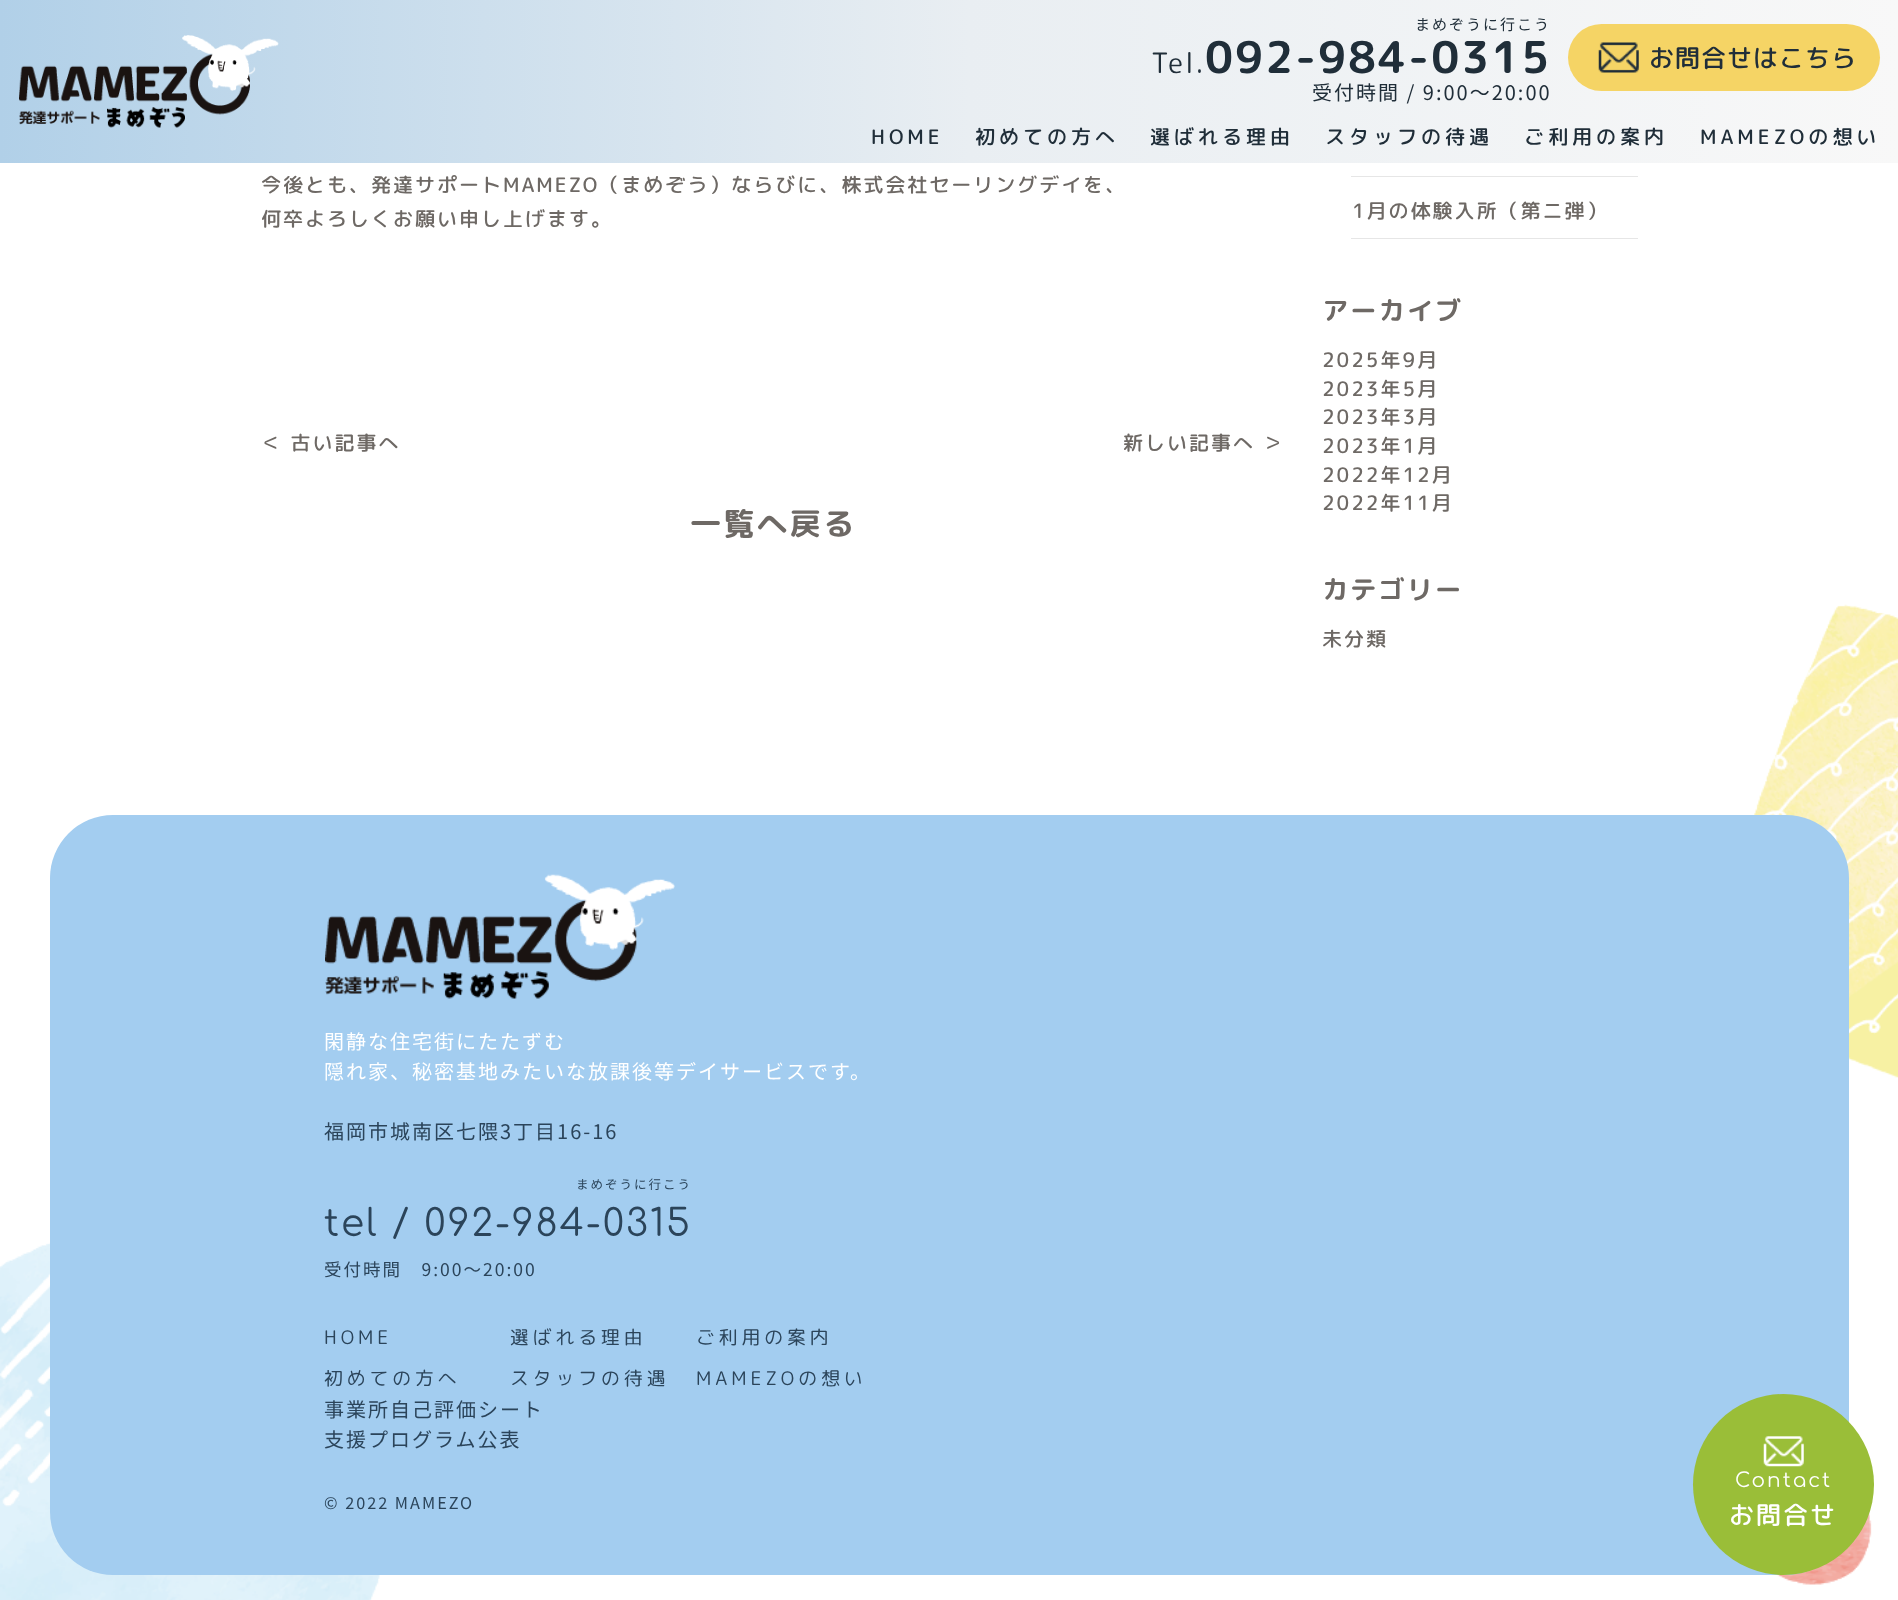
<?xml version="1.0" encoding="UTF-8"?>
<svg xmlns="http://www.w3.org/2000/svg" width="1898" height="1600">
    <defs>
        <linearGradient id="g1" gradientUnits="userSpaceOnUse" x1="0" y1="81" x2="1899" y2="81"><stop offset="0" stop-color="#B1D0E8"/><stop offset="0.51" stop-color="#E9EEF2"/><stop offset="1" stop-color="#F8F8F8"/></linearGradient>
    </defs>
    <rect width="100%" height="100%" fill="#FFFFFF"/>
    <rect x="0" y="0" width="1898" height="163" fill="url(#g1)"/>
    <image x="19" y="35" width="260" height="93" href="img_01.png"/>
    <text x="1415" y="30" font-family="Noto Sans JP" font-size="15" letter-spacing="2" fill="#202E39">まめぞうに行こう</text>
    <text x="1151" y="73" font-family="'Rounded Mplus 1c'" font-size="28" letter-spacing="2" fill="#202E39">Tel.</text>
    <text x="1205" y="73" font-family="'Rounded Mplus 1c Bold'" font-size="43.75" font-weight="700" letter-spacing="2" fill="#202E39">092-984-0315</text>
    <text x="1312" y="100" font-family="Noto Sans JP" font-size="20" letter-spacing="2" fill="#202E39">受付時間 / 9:00～20:00</text>
    <rect x="1568" y="24" width="312" height="67" rx="33.5" fill="#F5D465"/>
    <image x="1598" y="42" width="41" height="31" href="img_02.png"/>
    <text x="1649" y="67" font-family="'Rounded Mplus 1c'" font-size="25" font-weight="500" letter-spacing="1" fill="#202E39">お問合せはこちら</text>
    <text x="871" y="144" font-family="'Rounded Mplus 1c'" font-size="20" font-weight="500" letter-spacing="4" fill="#202E39">HOME</text>
    <text x="975" y="144" font-family="'Rounded Mplus 1c'" font-size="20" font-weight="500" letter-spacing="4" fill="#202E39">初めての方へ</text>
    <text x="1150" y="144" font-family="'Rounded Mplus 1c'" font-size="20" font-weight="500" letter-spacing="4" fill="#202E39">選ばれる理由</text>
    <text x="1325" y="144" font-family="'Rounded Mplus 1c'" font-size="20" font-weight="500" letter-spacing="4" fill="#202E39">スタッフの待遇</text>
    <text x="1524" y="144" font-family="'Rounded Mplus 1c'" font-size="20" font-weight="500" letter-spacing="4" fill="#202E39">ご利用の案内</text>
    <text x="1700" y="144" font-family="'Rounded Mplus 1c'" font-size="20" font-weight="500" letter-spacing="4" fill="#202E39">MAMEZOの想い</text>
    <text font-family="'Rounded Mplus 1c'" font-size="20" font-weight="500" letter-spacing="2" fill="#6E6965">
        <tspan x="261" y="192">今後とも、発達サポートMAMEZO（まめぞう）ならびに、株式会社セーリングデイを、</tspan>
        <tspan x="261" y="226">何卒よろしくお願い申し上げます。</tspan>
    </text>
    <text x="261" y="450" font-family="'Rounded Mplus 1c'" font-size="20" font-weight="500" letter-spacing="2" fill="#6E6965">＜ 古い記事へ</text>
    <text x="1123" y="450" font-family="'Rounded Mplus 1c'" font-size="20" font-weight="500" letter-spacing="2" fill="#6E6965">新しい記事へ ＞</text>
    <text x="690" y="535" font-family="'Rounded Mplus 1c Bold'" font-size="31.25" font-weight="700" letter-spacing="2" fill="#6E6965">一覧へ戻る</text>
    <rect x="1351" y="176" width="287" height="1" fill="#E6E6E6"/>
    <rect x="1351" y="238" width="287" height="1" fill="#E6E6E6"/>
    <text x="1352" y="218" font-family="'Rounded Mplus 1c'" font-size="20" font-weight="500" letter-spacing="2" fill="#6E6965">1月の体験入所（第ニ弾）</text>
    <text x="1322" y="320" font-family="'Rounded Mplus 1c Bold'" font-size="26.25" font-weight="700" letter-spacing="2" fill="#6E6965">アーカイブ</text>
    <text font-family="'Rounded Mplus 1c'" font-size="20" font-weight="500" letter-spacing="2" fill="#6E6965">
        <tspan x="1322" y="367">2025年9月</tspan>
        <tspan x="1322" y="396">2023年5月</tspan>
        <tspan x="1322" y="424">2023年3月</tspan>
        <tspan x="1322" y="453">2023年1月</tspan>
        <tspan x="1322" y="482">2022年12月</tspan>
        <tspan x="1322" y="510">2022年11月</tspan>
    </text>
    <text x="1322" y="599" font-family="'Rounded Mplus 1c Bold'" font-size="26.25" font-weight="700" letter-spacing="2" fill="#6E6965">カテゴリー</text>
    <image x="0" y="604" width="1898" height="996" href="img_03.png"/>
    <text x="1322" y="646" font-family="'Rounded Mplus 1c'" font-size="20" font-weight="500" letter-spacing="2" fill="#6E6965">未分類</text>
    <rect x="50" y="815" width="1799" height="760" rx="63" fill="#A3CDF0"/>
    <image x="325" y="874" width="350" height="125" href="img_04.png"/>
    <text font-family="Noto Sans JP" font-size="20" letter-spacing="2" fill="#FFFFFF">
        <tspan x="324" y="1049">閑静な住宅街にたたずむ</tspan>
        <tspan x="324" y="1079">隠れ家、秘密基地みたいな放課後等デイサービスです。</tspan>
    </text>
    <text x="324" y="1139" font-family="Noto Sans JP" font-size="20" letter-spacing="2" fill="#2B445A">福岡市城南区七隈3丁目16-16</text>
    <text x="576" y="1189" font-family="Noto Sans JP" font-size="12.5" letter-spacing="2" fill="#2B445A">まめぞうに行こう</text>
    <text x="324" y="1236" font-family="Comfortaa" font-size="37.5" letter-spacing="2" fill="#2B445A">tel / 092-984-0315</text>
    <text x="324" y="1276" font-family="Noto Sans JP" font-size="17.5" letter-spacing="2" fill="#2B445A">受付時間　9:00～20:00</text>
    <text x="324" y="1344" font-family="'Rounded Mplus 1c'" font-size="18.75" letter-spacing="4" fill="#2B445A">HOME</text>
    <text x="510" y="1344" font-family="'Rounded Mplus 1c'" font-size="18.75" letter-spacing="4" fill="#2B445A">選ばれる理由</text>
    <text x="696" y="1344" font-family="'Rounded Mplus 1c'" font-size="18.75" letter-spacing="4" fill="#2B445A">ご利用の案内</text>
    <text x="324" y="1385" font-family="'Rounded Mplus 1c'" font-size="18.75" letter-spacing="4" fill="#2B445A">初めての方へ</text>
    <text x="510" y="1385" font-family="'Rounded Mplus 1c'" font-size="18.75" letter-spacing="4" fill="#2B445A">スタッフの待遇</text>
    <text x="696" y="1385" font-family="'Rounded Mplus 1c'" font-size="18.75" letter-spacing="4" fill="#2B445A">MAMEZOの想い</text>
    <text font-family="Noto Sans JP" font-size="20" letter-spacing="2" fill="#2B445A">
        <tspan x="324" y="1417">事業所自己評価シート</tspan>
        <tspan x="324" y="1447">支援プログラム公表</tspan>
    </text>
    <text x="324" y="1509" font-family="Noto Sans JP" font-size="16.25" letter-spacing="2" fill="#2B445A">© 2022 MAMEZO</text>
    <circle cx="1783.5" cy="1484.5" r="90.5" fill="#9ABE38"/>
    <image x="1763" y="1436" width="41" height="31" href="img_05.png"/>
    <text x="1735" y="1487" font-family="Comfortaa" font-size="20" letter-spacing="2" fill="#FFFFFF">Contact</text>
    <text x="1729" y="1524" font-family="'Rounded Mplus 1c'" font-size="25" font-weight="500" letter-spacing="2" fill="#FFFFFF">お問合せ</text>
</svg>
